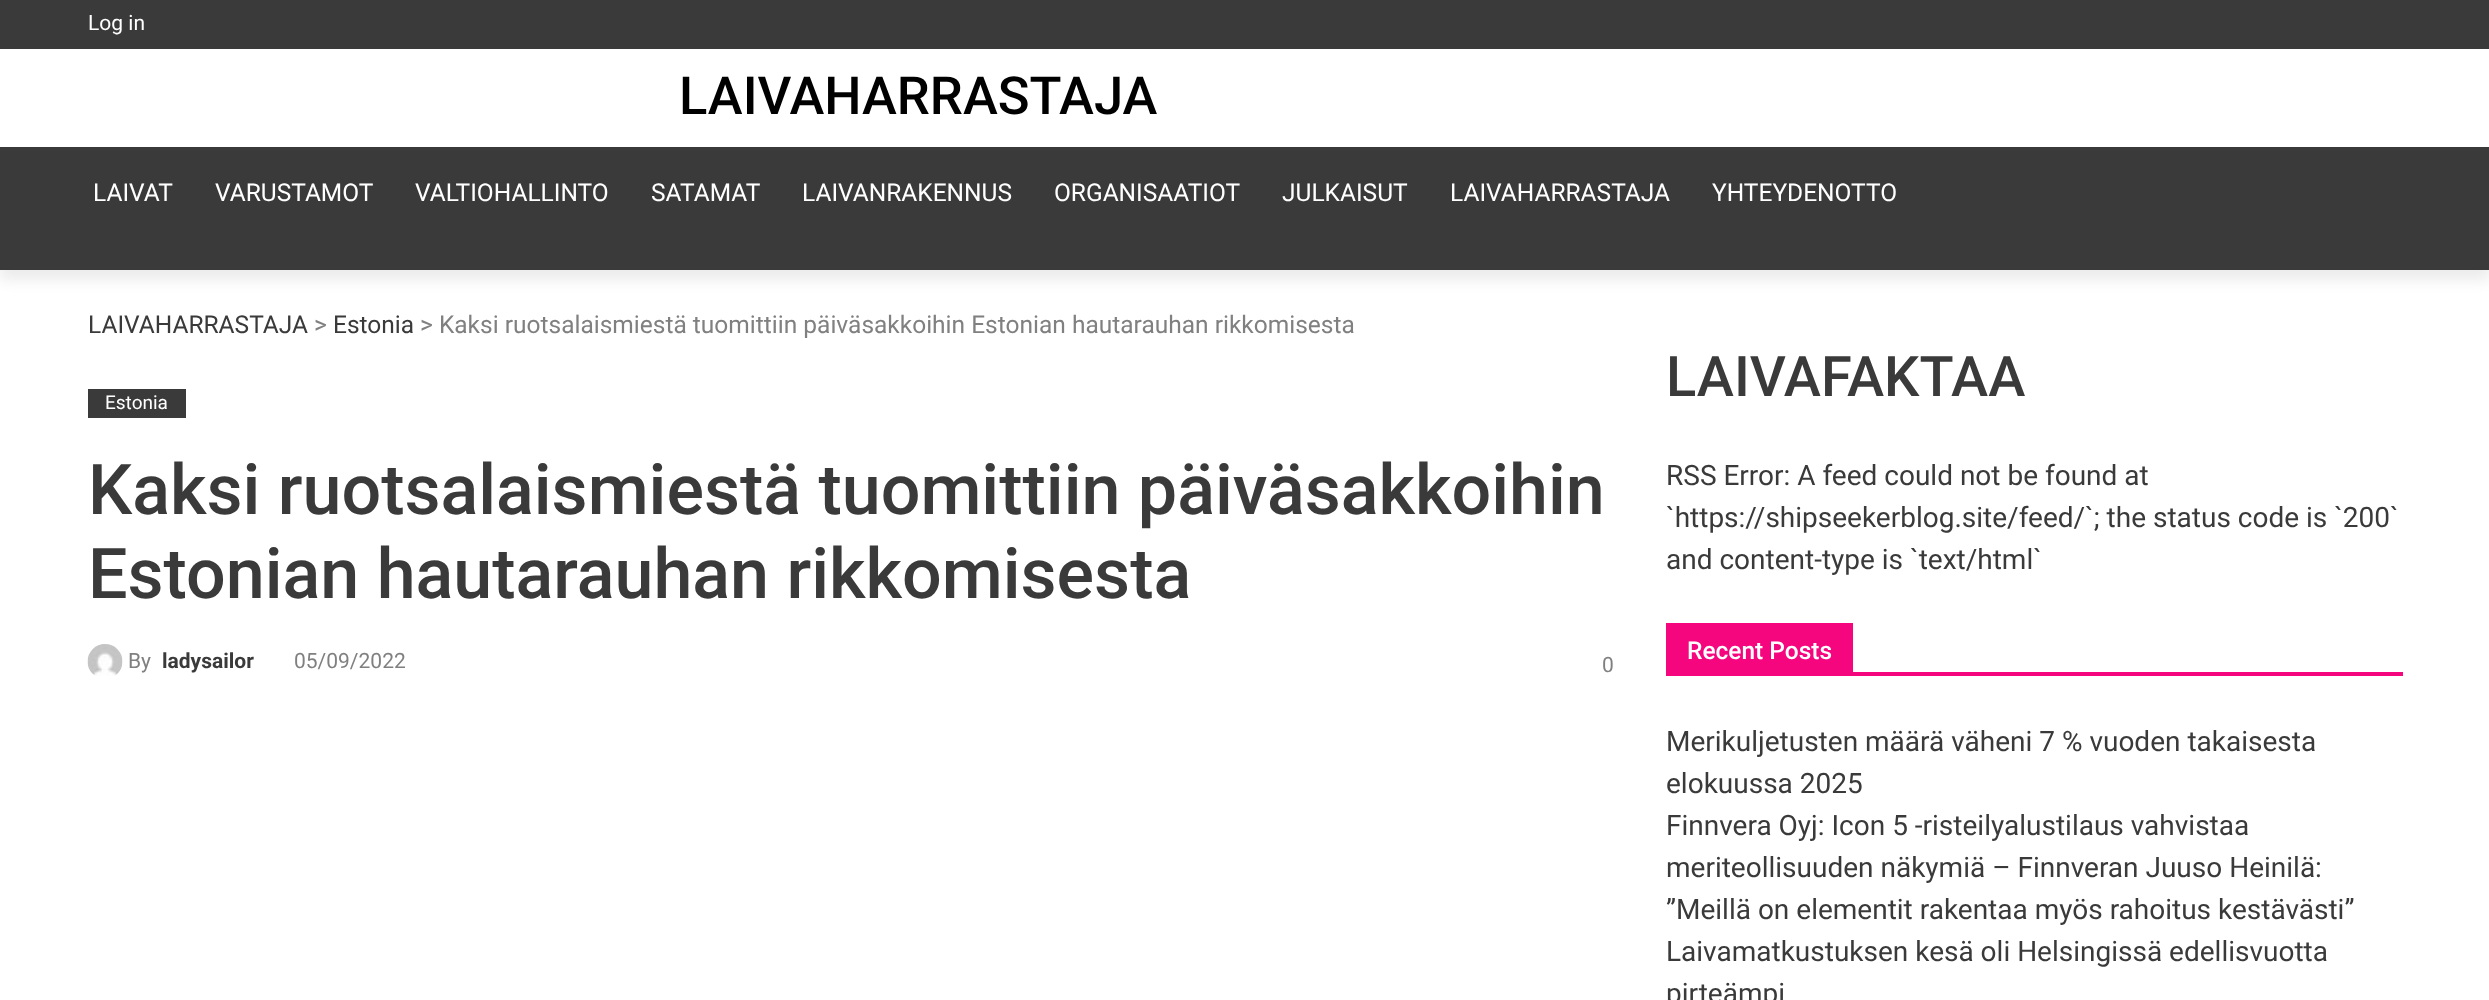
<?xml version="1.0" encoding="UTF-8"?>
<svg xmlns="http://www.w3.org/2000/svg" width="2489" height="1000">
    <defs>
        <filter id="blur1" x="-50%" y="-200%" width="200%" height="500%"><feGaussianBlur stdDeviation="7"/></filter>
    </defs>
    <rect width="100%" height="100%" fill="#FFFFFF"/>
    <rect x="0" y="11" width="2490" height="269" fill="#000000" fill-opacity="0.08" filter="url(#blur1)"/>
    <rect x="0" y="49" width="2489" height="98" fill="#FFFFFF"/>
    <rect x="0" y="0" width="2489" height="49" fill="#3A3A3A"/>
    <text x="88" y="30" font-family="Roboto" font-size="21" fill="#FFFFFF">Log in</text>
    <text x="679" y="114" font-family="Roboto" font-size="52.5" font-weight="500" fill="#000000">LAIVAHARRASTAJA</text>
    <rect x="0" y="147" width="2489" height="123" fill="#3A3A3A"/>
    <text x="93" y="201" font-family="Roboto" font-size="24.5" fill="#FFFFFF">LAIVAT</text>
    <text x="215" y="201" font-family="Roboto" font-size="24.5" fill="#FFFFFF">VARUSTAMOT</text>
    <text x="415" y="201" font-family="Roboto" font-size="24.5" fill="#FFFFFF">VALTIOHALLINTO</text>
    <text x="651" y="201" font-family="Roboto" font-size="24.5" fill="#FFFFFF">SATAMAT</text>
    <text x="802" y="201" font-family="Roboto" font-size="24.5" fill="#FFFFFF">LAIVANRAKENNUS</text>
    <text x="1054" y="201" font-family="Roboto" font-size="24.5" fill="#FFFFFF">ORGANISAATIOT</text>
    <text x="1282" y="201" font-family="Roboto" font-size="24.5" fill="#FFFFFF">JULKAISUT</text>
    <text x="1450" y="201" font-family="Roboto" font-size="24.5" fill="#FFFFFF">LAIVAHARRASTAJA</text>
    <text x="1712" y="201" font-family="Roboto" font-size="24.5" fill="#FFFFFF">YHTEYDENOTTO</text>
    <text x="88" y="333" font-family="Roboto" font-size="24.5" fill="#3A3A3A">LAIVAHARRASTAJA</text>
    <text x="314" y="333" font-family="Roboto" font-size="24.5" fill="#808080">&gt;</text>
    <text x="333" y="333" font-family="Roboto" font-size="24.5" fill="#3A3A3A">Estonia</text>
    <text x="420" y="333" font-family="Roboto" font-size="24.5" fill="#808080">&gt; Kaksi ruotsalaismiestä tuomittiin päiväsakkoihin Estonian hautarauhan rikkomisesta</text>
    <rect x="88" y="389" width="98" height="29" fill="#3A3A3A"/>
    <text x="105" y="409" font-family="Roboto" font-size="19" fill="#FFFFFF">Estonia</text>
    <text font-family="Roboto" font-size="70" font-weight="500" fill="#3A3A3A">
        <tspan x="88" y="514">Kaksi ruotsalaismiestä tuomittiin päiväsakkoihin</tspan>
        <tspan x="88" y="598">Estonian hautarauhan rikkomisesta</tspan>
    </text>
    <image x="87" y="644" width="36" height="32" href="img_01.png"/>
    <text x="128" y="668" font-family="Roboto" font-size="21" fill="#808080">By</text>
    <text x="162" y="668" font-family="Roboto" font-size="21" font-weight="700" fill="#3A3A3A">ladysailor</text>
    <text x="294" y="668" font-family="Roboto" font-size="21" fill="#808080">05/09/2022</text>
    <text x="1602" y="672" font-family="Roboto" font-size="21" fill="#808080">0</text>
    <text x="1666" y="396" font-family="Roboto" font-size="56" font-weight="500" fill="#3A3A3A">LAIVAFAKTAA</text>
    <text font-family="Roboto" font-size="28" fill="#3A3A3A">
        <tspan x="1666" y="485">RSS Error: A feed could not be found at</tspan>
        <tspan x="1666" y="527">`https://shipseekerblog.site/feed/`; the status code is `200`</tspan>
        <tspan x="1666" y="569">and content-type is `text/html`</tspan>
    </text>
    <rect x="1666" y="672" width="737" height="4" fill="#F5067E"/>
    <rect x="1666" y="623" width="187" height="49" fill="#F5067E"/>
    <text x="1687" y="659" font-family="Roboto" font-size="24.5" font-weight="500" fill="#FFFFFF">Recent Posts</text>
    <text font-family="Roboto" font-size="28" fill="#3A3A3A">
        <tspan x="1666" y="751">Merikuljetusten määrä väheni 7 % vuoden takaisesta</tspan>
        <tspan x="1666" y="793">elokuussa 2025</tspan>
        <tspan x="1666" y="835">Finnvera Oyj: Icon 5 -risteilyalustilaus vahvistaa</tspan>
        <tspan x="1666" y="877">meriteollisuuden näkymiä – Finnveran Juuso Heinilä:</tspan>
        <tspan x="1666" y="919">”Meillä on elementit rakentaa myös rahoitus kestävästi”</tspan>
        <tspan x="1666" y="961">Laivamatkustuksen kesä oli Helsingissä edellisvuotta</tspan>
        <tspan x="1666" y="1003">pirteämpi</tspan>
    </text>
</svg>
